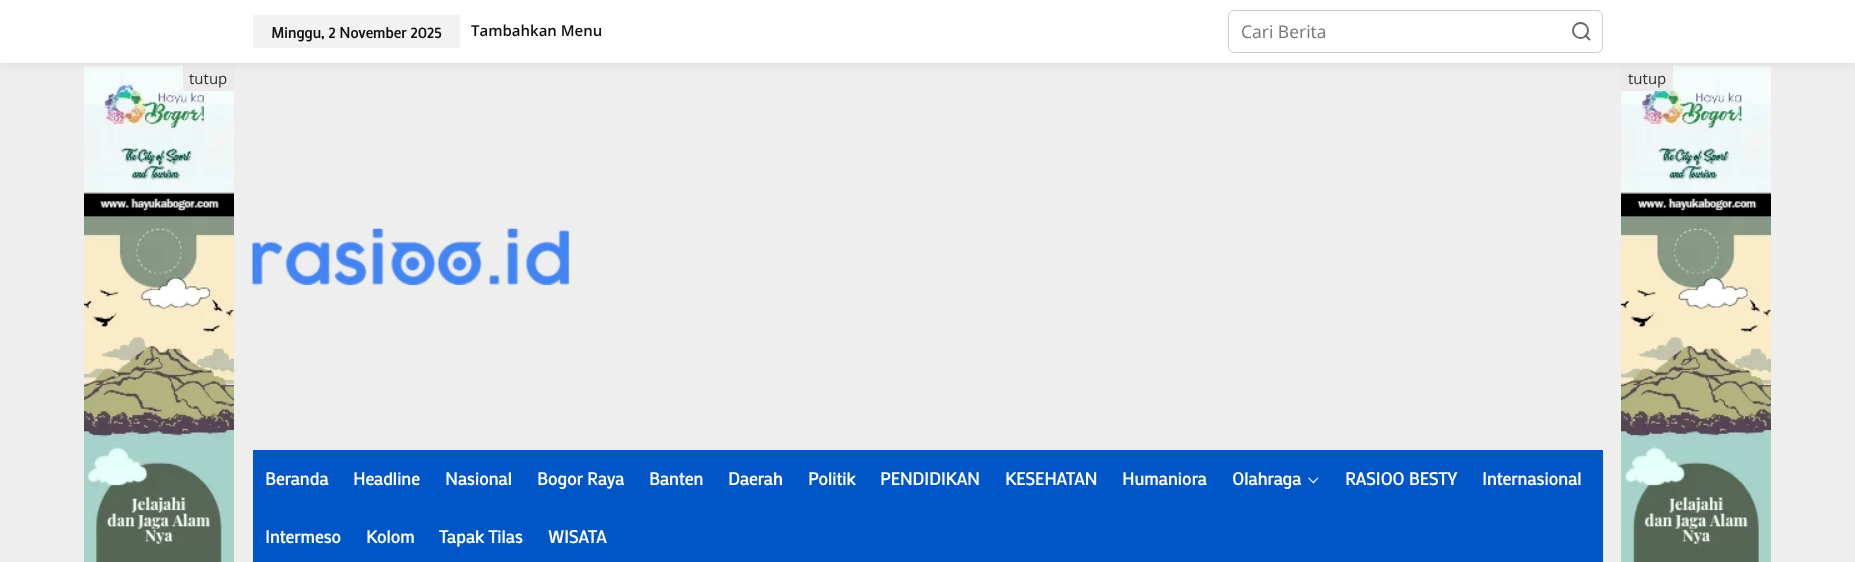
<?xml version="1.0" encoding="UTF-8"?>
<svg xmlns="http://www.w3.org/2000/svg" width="1855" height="562">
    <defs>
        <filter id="blur1" x="-50%" y="-200%" width="200%" height="500%"><feGaussianBlur stdDeviation="6"/></filter>
    </defs>
    <rect width="100%" height="100%" fill="#EEEEEE"/>
    <image x="84" y="66" width="150" height="496" href="img_01.png"/>
    <rect x="183" y="66" width="51" height="25" fill="#EBEBEB"/>
    <image x="1621" y="66" width="150" height="496" href="img_02.png"/>
    <rect x="1621" y="66" width="52" height="25" fill="#EBEBEB"/>
    <rect x="0" y="0" width="1855" height="63" fill="#000000" fill-opacity="0.1" filter="url(#blur1)"/>
    <rect x="0" y="0" width="1855" height="63" fill="#FFFFFF"/>
    <rect x="253" y="15" width="207" height="33" fill="#F2F2F2"/>
    <text x="271" y="38" font-family="Mako" font-size="15" font-weight="700" fill="#111111">Minggu, 2 November 2025</text>
    <text x="471" y="36" font-family="Open Sans" font-size="15" font-weight="600" fill="#111111">Tambahkan Menu</text>
    <rect x="1228.5" y="10.5" width="374" height="42" rx="5.5" fill="none" stroke="#CCCCCC"/>
    <text x="1241" y="38" font-family="Open Sans" font-size="17.5" fill="#757575">Cari Berita</text>
    <circle cx="1580.5" cy="30.5" r="7.5" fill="none" stroke="#666666" stroke-width="1.9"/>
    <path d="M 1589.5 39.5 L 1585.5 35.5" fill="none" stroke="#666666" stroke-width="1.9" stroke-linecap="round" stroke-linejoin="round"/>
    <text x="189" y="84" font-family="Open Sans" font-size="15" fill="#333333">tutup</text>
    <text x="1628" y="84" font-family="Open Sans" font-size="15" fill="#333333">tutup</text>
    <image x="252" y="228" width="317" height="57" href="img_03.png"/>
    <rect x="253" y="450" width="1350" height="112" fill="#0056C6"/>
    <text x="265" y="485" font-family="Mako" font-size="17.5" font-weight="700" fill="#FFFFFF">Beranda</text>
    <text x="353" y="485" font-family="Mako" font-size="17.5" font-weight="700" fill="#FFFFFF">Headline</text>
    <text x="445" y="485" font-family="Mako" font-size="17.5" font-weight="700" fill="#FFFFFF">Nasional</text>
    <text x="537" y="485" font-family="Mako" font-size="17.5" font-weight="700" fill="#FFFFFF">Bogor Raya</text>
    <text x="649" y="485" font-family="Mako" font-size="17.5" font-weight="700" fill="#FFFFFF">Banten</text>
    <text x="728" y="485" font-family="Mako" font-size="17.5" font-weight="700" fill="#FFFFFF">Daerah</text>
    <text x="808" y="485" font-family="Mako" font-size="17.5" font-weight="700" fill="#FFFFFF">Politik</text>
    <text x="880" y="485" font-family="Mako" font-size="17.5" font-weight="700" fill="#FFFFFF">PENDIDIKAN</text>
    <text x="1005" y="485" font-family="Mako" font-size="17.5" font-weight="700" fill="#FFFFFF">KESEHATAN</text>
    <text x="1122" y="485" font-family="Mako" font-size="17.5" font-weight="700" fill="#FFFFFF">Humaniora</text>
    <text x="1232" y="485" font-family="Mako" font-size="17.5" font-weight="700" fill="#FFFFFF">Olahraga</text>
    <path d="M 1317.5 477.5 L 1318.5 478 L 1313.5 483.5 L 1312.5 482.5 Z" fill="#FFFFFF"/>
    <path d="M 1309 477.5 L 1314 482.5 L 1313.5 483.5 L 1308 478 Z" fill="#FFFFFF"/>
    <text x="1345" y="485" font-family="Mako" font-size="17.5" font-weight="700" fill="#FFFFFF">RASIOO BESTY</text>
    <text x="1482" y="485" font-family="Mako" font-size="17.5" font-weight="700" fill="#FFFFFF">Internasional</text>
    <text x="265" y="543" font-family="Mako" font-size="17.5" font-weight="700" fill="#FFFFFF">Intermeso</text>
    <text x="366" y="543" font-family="Mako" font-size="17.5" font-weight="700" fill="#FFFFFF">Kolom</text>
    <text x="439" y="543" font-family="Mako" font-size="17.5" font-weight="700" fill="#FFFFFF">Tapak Tilas</text>
    <text x="548" y="543" font-family="Mako" font-size="17.5" font-weight="700" fill="#FFFFFF">WISATA</text>
</svg>
